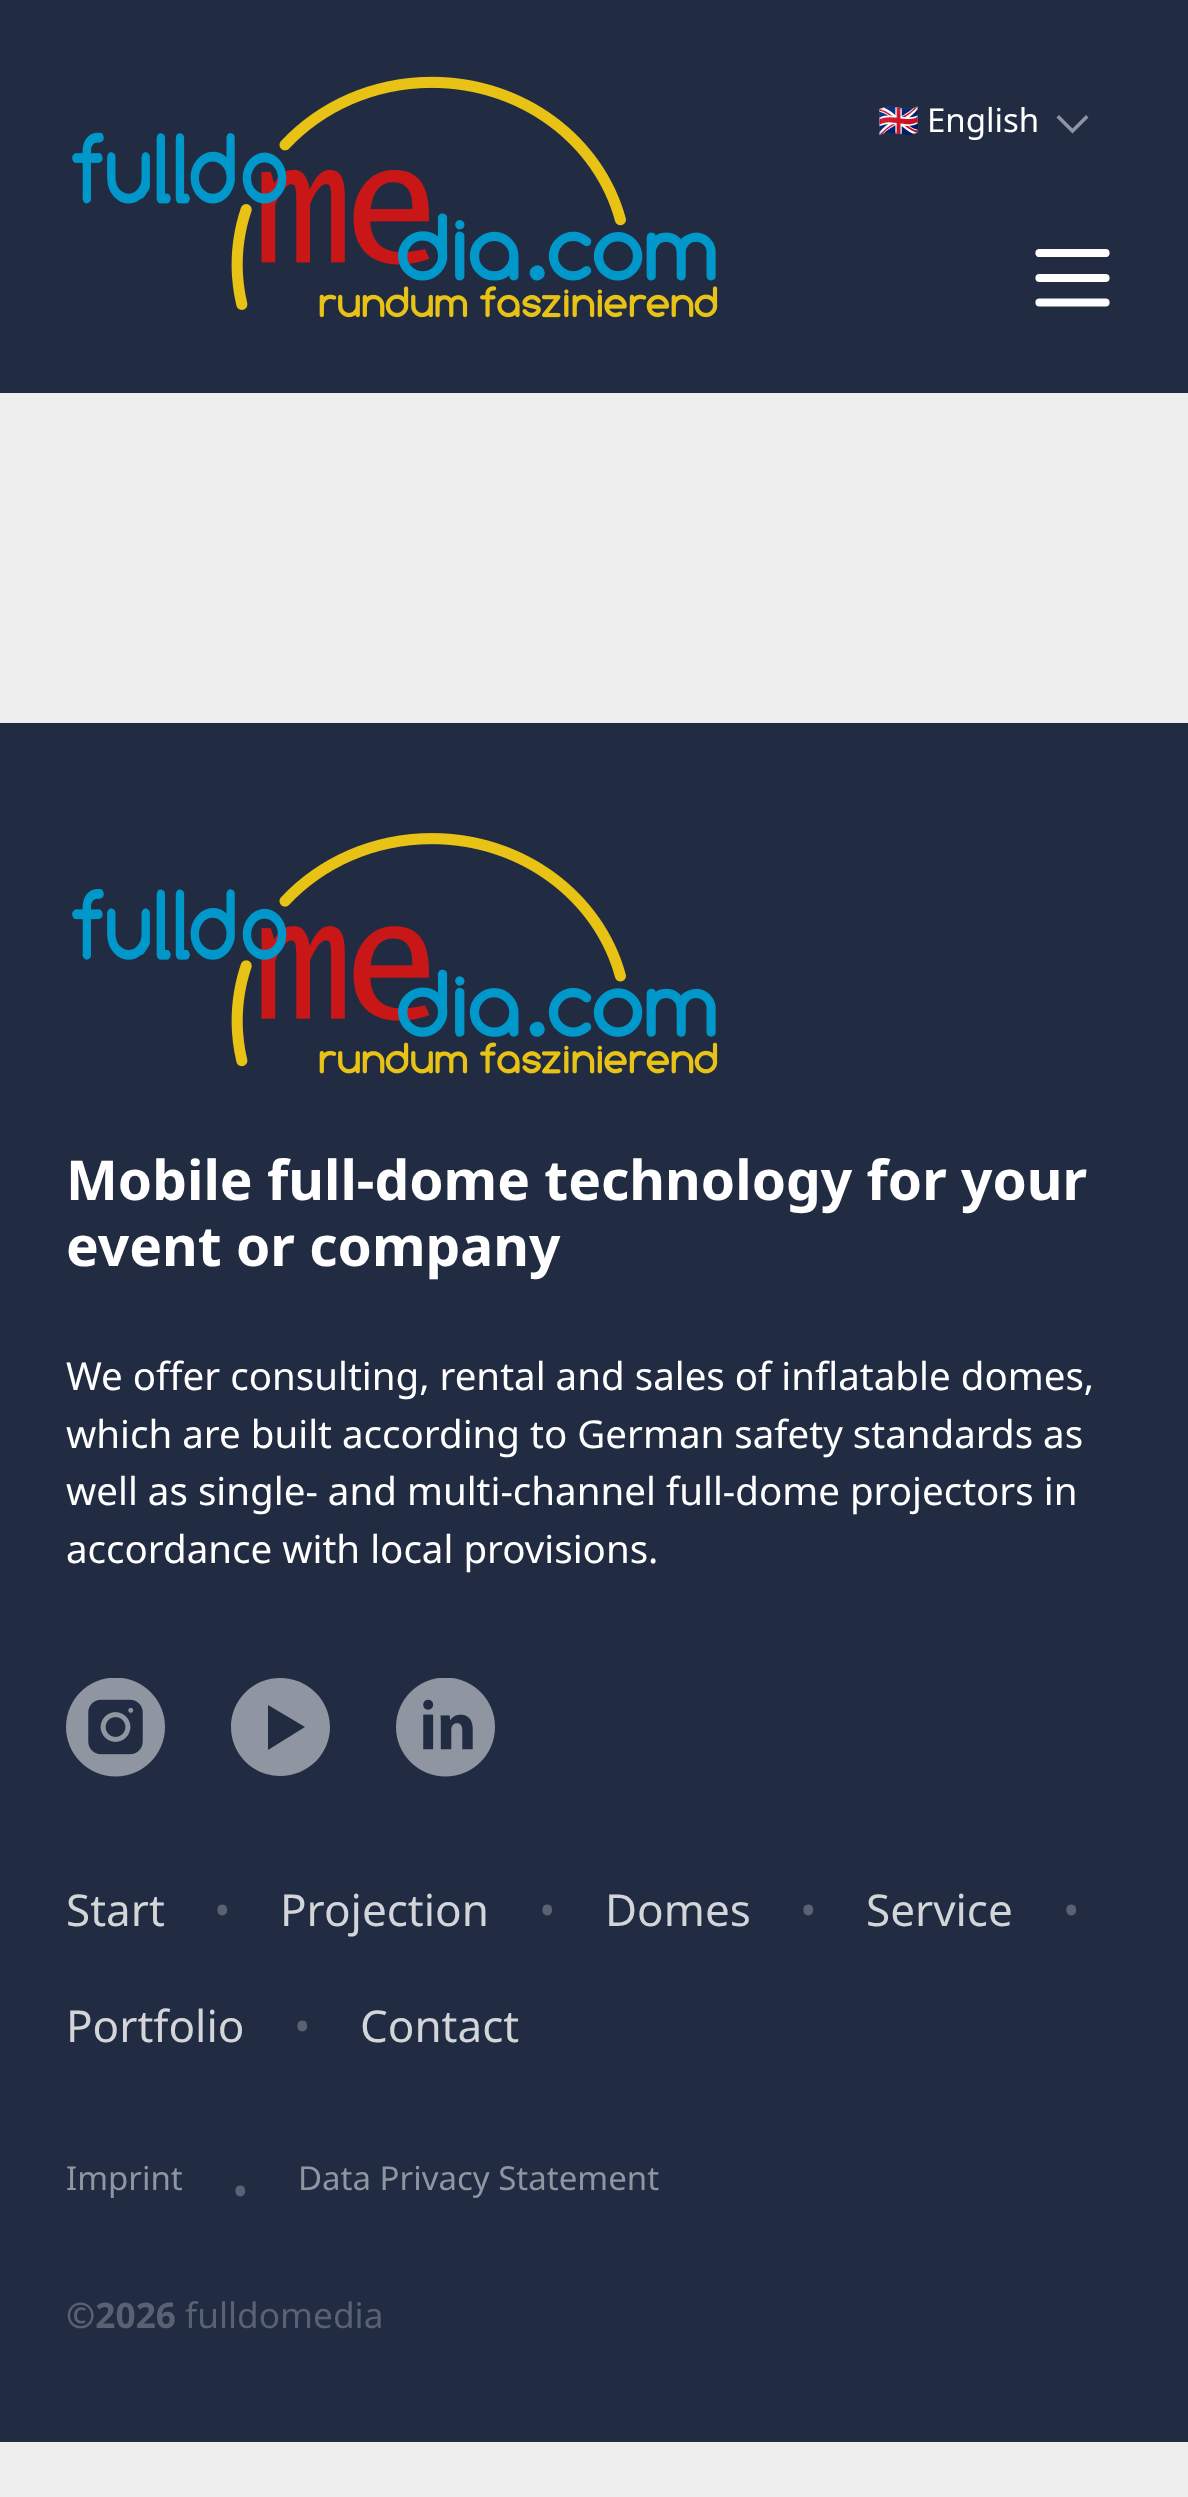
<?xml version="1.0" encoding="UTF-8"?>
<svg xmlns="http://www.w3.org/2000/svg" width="1188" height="2497">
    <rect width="100%" height="100%" fill="#EEEEEE"/>
    <rect x="0" y="0" width="1188" height="393" fill="#212C43"/>
    <image x="72" y="76" width="646" height="242" href="img_01.png"/>
    <text x="878" y="132" font-family="Noto Color Emoji" font-size="33" fill="#FFFFFF">🇬🇧</text>
    <text x="927" y="132" font-family="Noto Sans" font-size="33" fill="#FFFFFF">English</text>
    <path d="M 1086 115 L 1088.5 117.5 L 1072.5 133.5 L 1056.5 117.5 L 1059 115 L 1072.5 128.5 Z" fill="#9096A1"/>
    <path d="M 1039.5 253 H 1105.5 M 1039.5 278 H 1105.5 M 1039.5 302.5 H 1105.5" fill="none" stroke="#FFFFFF" stroke-width="8.2" stroke-linecap="round" stroke-linejoin="round"/>
    <rect x="0" y="723" width="1188" height="1719" fill="#212C43"/>
    <image x="72" y="833" width="646" height="241" href="img_02.png"/>
    <text font-family="Noto Sans" font-size="55" font-weight="700" fill="#FFFFFF">
        <tspan x="66" y="1200">Mobile full-dome technology for your</tspan>
        <tspan x="66" y="1266">event or company</tspan>
    </text>
    <text font-family="Noto Sans" font-size="38.5" fill="#FFFFFF">
        <tspan x="66" y="1390">We offer consulting, rental and sales of inflatable domes,</tspan>
        <tspan x="66" y="1448">which are built according to German safety standards as</tspan>
        <tspan x="66" y="1505">well as single- and multi-channel full-dome projectors in</tspan>
        <tspan x="66" y="1563">accordance with local provisions.</tspan>
    </text>
    <image x="66" y="1678" width="99" height="99" href="img_03.png"/>
    <path d="M 280 1776 C 308 1776 330 1754 330 1727 C 330 1700 308 1678 280 1678 C 253 1678 231 1700 231 1727 C 231 1754 253 1776 280 1776 Z M 305 1727 L 268 1750 V 1705 Z" fill="#9096A1" fill-rule="evenodd"/>
    <image x="396" y="1678" width="99" height="99" href="img_04.png"/>
    <text x="66" y="1926" font-family="Noto Sans" font-size="44" fill="#D3D5D9">Start</text>
    <text x="214" y="1926" font-family="Noto Sans" font-size="44" fill="#596172">•</text>
    <text x="280" y="1926" font-family="Noto Sans" font-size="44" fill="#D3D5D9">Projection</text>
    <text x="539" y="1926" font-family="Noto Sans" font-size="44" fill="#596172">•</text>
    <text x="605" y="1926" font-family="Noto Sans" font-size="44" fill="#D3D5D9">Domes</text>
    <text x="800" y="1926" font-family="Noto Sans" font-size="44" fill="#596172">•</text>
    <text x="866" y="1926" font-family="Noto Sans" font-size="44" fill="#D3D5D9">Service</text>
    <text x="1063" y="1926" font-family="Noto Sans" font-size="44" fill="#596172">•</text>
    <text x="66" y="2042" font-family="Noto Sans" font-size="44" fill="#D3D5D9">Portfolio</text>
    <text x="294" y="2042" font-family="Noto Sans" font-size="44" fill="#596172">•</text>
    <text x="360" y="2042" font-family="Noto Sans" font-size="44" fill="#D3D5D9">Contact</text>
    <text x="66" y="2190" font-family="Noto Sans" font-size="33" fill="#9096A1">Imprint</text>
    <text x="232" y="2207" font-family="Noto Sans" font-size="44" fill="#596172">•</text>
    <text x="298" y="2190" font-family="Noto Sans" font-size="33" fill="#9096A1">Data Privacy Statement</text>
    <text x="66" y="2328" font-family="Noto Sans" font-size="35.25" font-weight="700" fill="#596172">©2026</text>
    <text x="185" y="2328" font-family="Noto Sans" font-size="35.25" fill="#596172">fulldomedia</text>
</svg>
